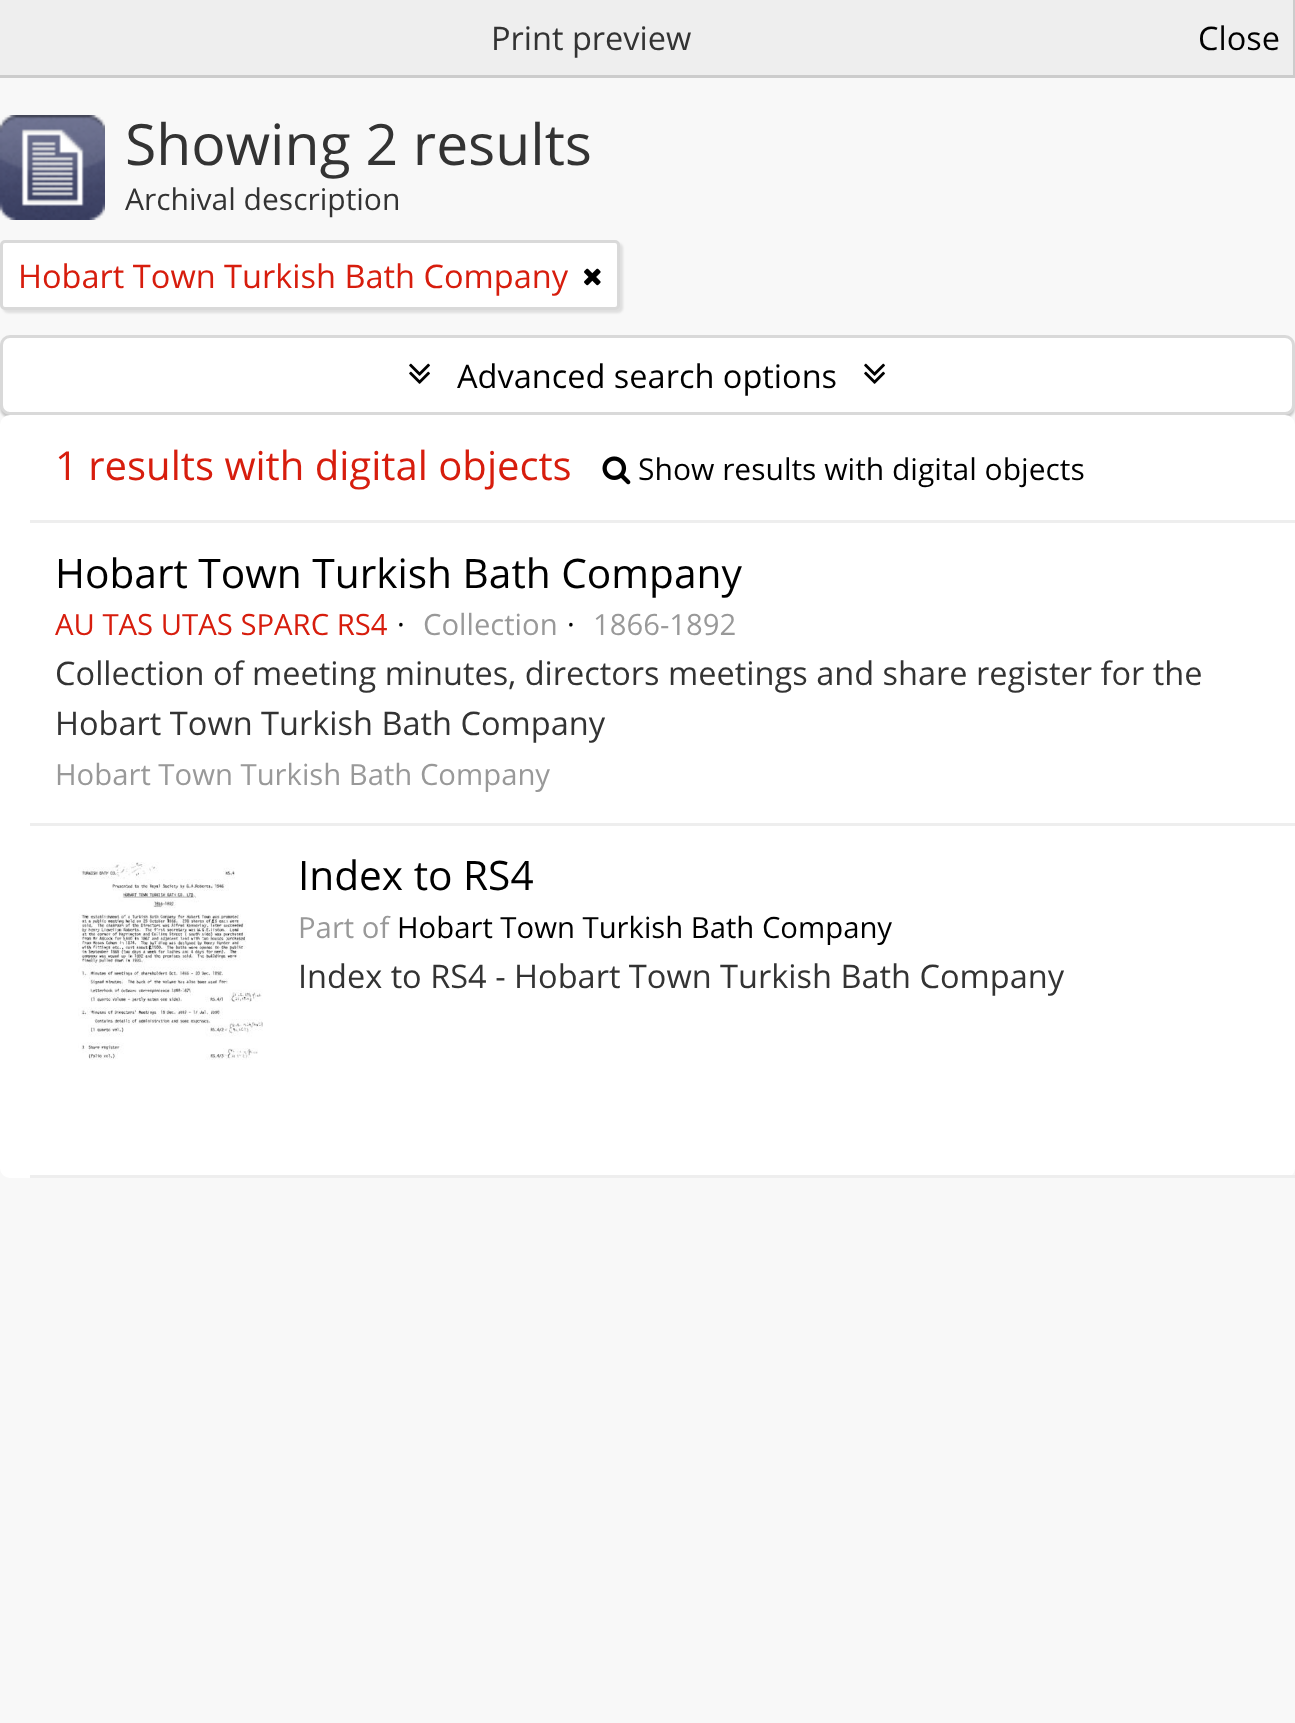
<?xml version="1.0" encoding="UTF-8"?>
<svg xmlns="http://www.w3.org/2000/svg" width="1295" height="1723">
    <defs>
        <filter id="blur1" x="-50%" y="-200%" width="200%" height="500%"><feGaussianBlur stdDeviation="1"/></filter>
    </defs>
    <rect width="100%" height="100%" fill="#F8F8F8"/>
    <rect x="0" y="0" width="1293" height="75" fill="#EEEEEE"/>
    <rect x="1293" y="0" width="2" height="78" fill="#CCCCCC"/>
    <rect x="0" y="75" width="1295" height="3" fill="#CCCCCC"/>
    <text x="491" y="50" font-family="Open Sans" font-size="32.5" fill="#333333">Print preview</text>
    <text x="1198" y="50" font-family="Open Sans" font-size="32.5" fill="#000000">Close</text>
    <image x="0" y="115" width="105" height="105" href="img_01.png"/>
    <text x="125" y="165" font-family="Open Sans" font-size="57" fill="#333333">Showing 2 results</text>
    <text x="125" y="210" font-family="Open Sans" font-size="30" fill="#333333">Archival description</text>
    <rect x="3" y="243" width="620" height="70" rx="5" fill="#000000" fill-opacity="0.1" filter="url(#blur1)"/>
    <rect x="1.5" y="241.5" width="617" height="67" rx="3.5" fill="#FFFFFF" stroke="#D9D9D9" stroke-width="3"/>
    <text x="18" y="288" font-family="Open Sans" font-size="32.5" fill="#D71D0D">Hobart Town Turkish Bath Company</text>
    <image x="584" y="268" width="17" height="18" href="img_02.png"/>
    <rect x="0" y="338" width="1295" height="80" rx="10" fill="#000000" fill-opacity="0.2" filter="url(#blur1)"/>
    <rect x="1.5" y="336.5" width="1292" height="77" rx="8.5" fill="#FFFFFF" stroke="#D9D9D9" stroke-width="3"/>
    <image x="409" y="363" width="21" height="21" href="img_03.png"/>
    <text x="457" y="388" font-family="Open Sans" font-size="32.5" fill="#000000">Advanced search options</text>
    <image x="864" y="363" width="21" height="21" href="img_03.png"/>
    <rect x="0" y="415" width="1295" height="763" rx="10" fill="#FFFFFF"/>
    <rect x="30" y="520" width="1265" height="3" fill="#EEEEEE"/>
    <text x="55" y="480" font-family="Open Sans" font-size="40" fill="#D71D0D">1 results with digital objects</text>
    <image x="602" y="456" width="29" height="29" href="img_04.png"/>
    <text x="638" y="480" font-family="Open Sans" font-size="30" fill="#000000">Show results with digital objects</text>
    <rect x="30" y="823" width="1265" height="3" fill="#EEEEEE"/>
    <text x="55" y="588" font-family="Open Sans" font-size="40.6" fill="#000000">Hobart Town Turkish Bath Company</text>
    <text x="55" y="635" font-family="Open Sans" font-size="29.25" fill="#D71D0D">AU TAS UTAS SPARC RS4</text>
    <text x="397" y="635" font-family="Open Sans" font-size="29.25" fill="#000000">·</text>
    <text x="423" y="635" font-family="Open Sans" font-size="29.25" fill="#999999">Collection</text>
    <text x="567" y="635" font-family="Open Sans" font-size="29.25" fill="#000000">·</text>
    <text x="593" y="635" font-family="Open Sans" font-size="29.25" fill="#999999">1866-1892</text>
    <text font-family="Open Sans" font-size="32.5" fill="#333333">
        <tspan x="55" y="685">Collection of meeting minutes, directors meetings and share register for the</tspan>
        <tspan x="55" y="735">Hobart Town Turkish Bath Company</tspan>
    </text>
    <text x="55" y="785" font-family="Open Sans" font-size="29.25" fill="#999999">Hobart Town Turkish Bath Company</text>
    <rect x="30" y="1175" width="1265" height="3" fill="#EEEEEE"/>
    <image x="78" y="862" width="185" height="198" href="img_05.png"/>
    <text x="298" y="890" font-family="Open Sans" font-size="40.6" fill="#000000">Index to RS4</text>
    <text x="298" y="938" font-family="Open Sans" font-size="29.25" fill="#999999">Part of</text>
    <text x="397" y="938" font-family="Open Sans" font-size="29.25" fill="#000000">Hobart Town Turkish Bath Company</text>
    <text x="298" y="988" font-family="Open Sans" font-size="32.5" fill="#333333">Index to RS4 - Hobart Town Turkish Bath Company</text>
</svg>
